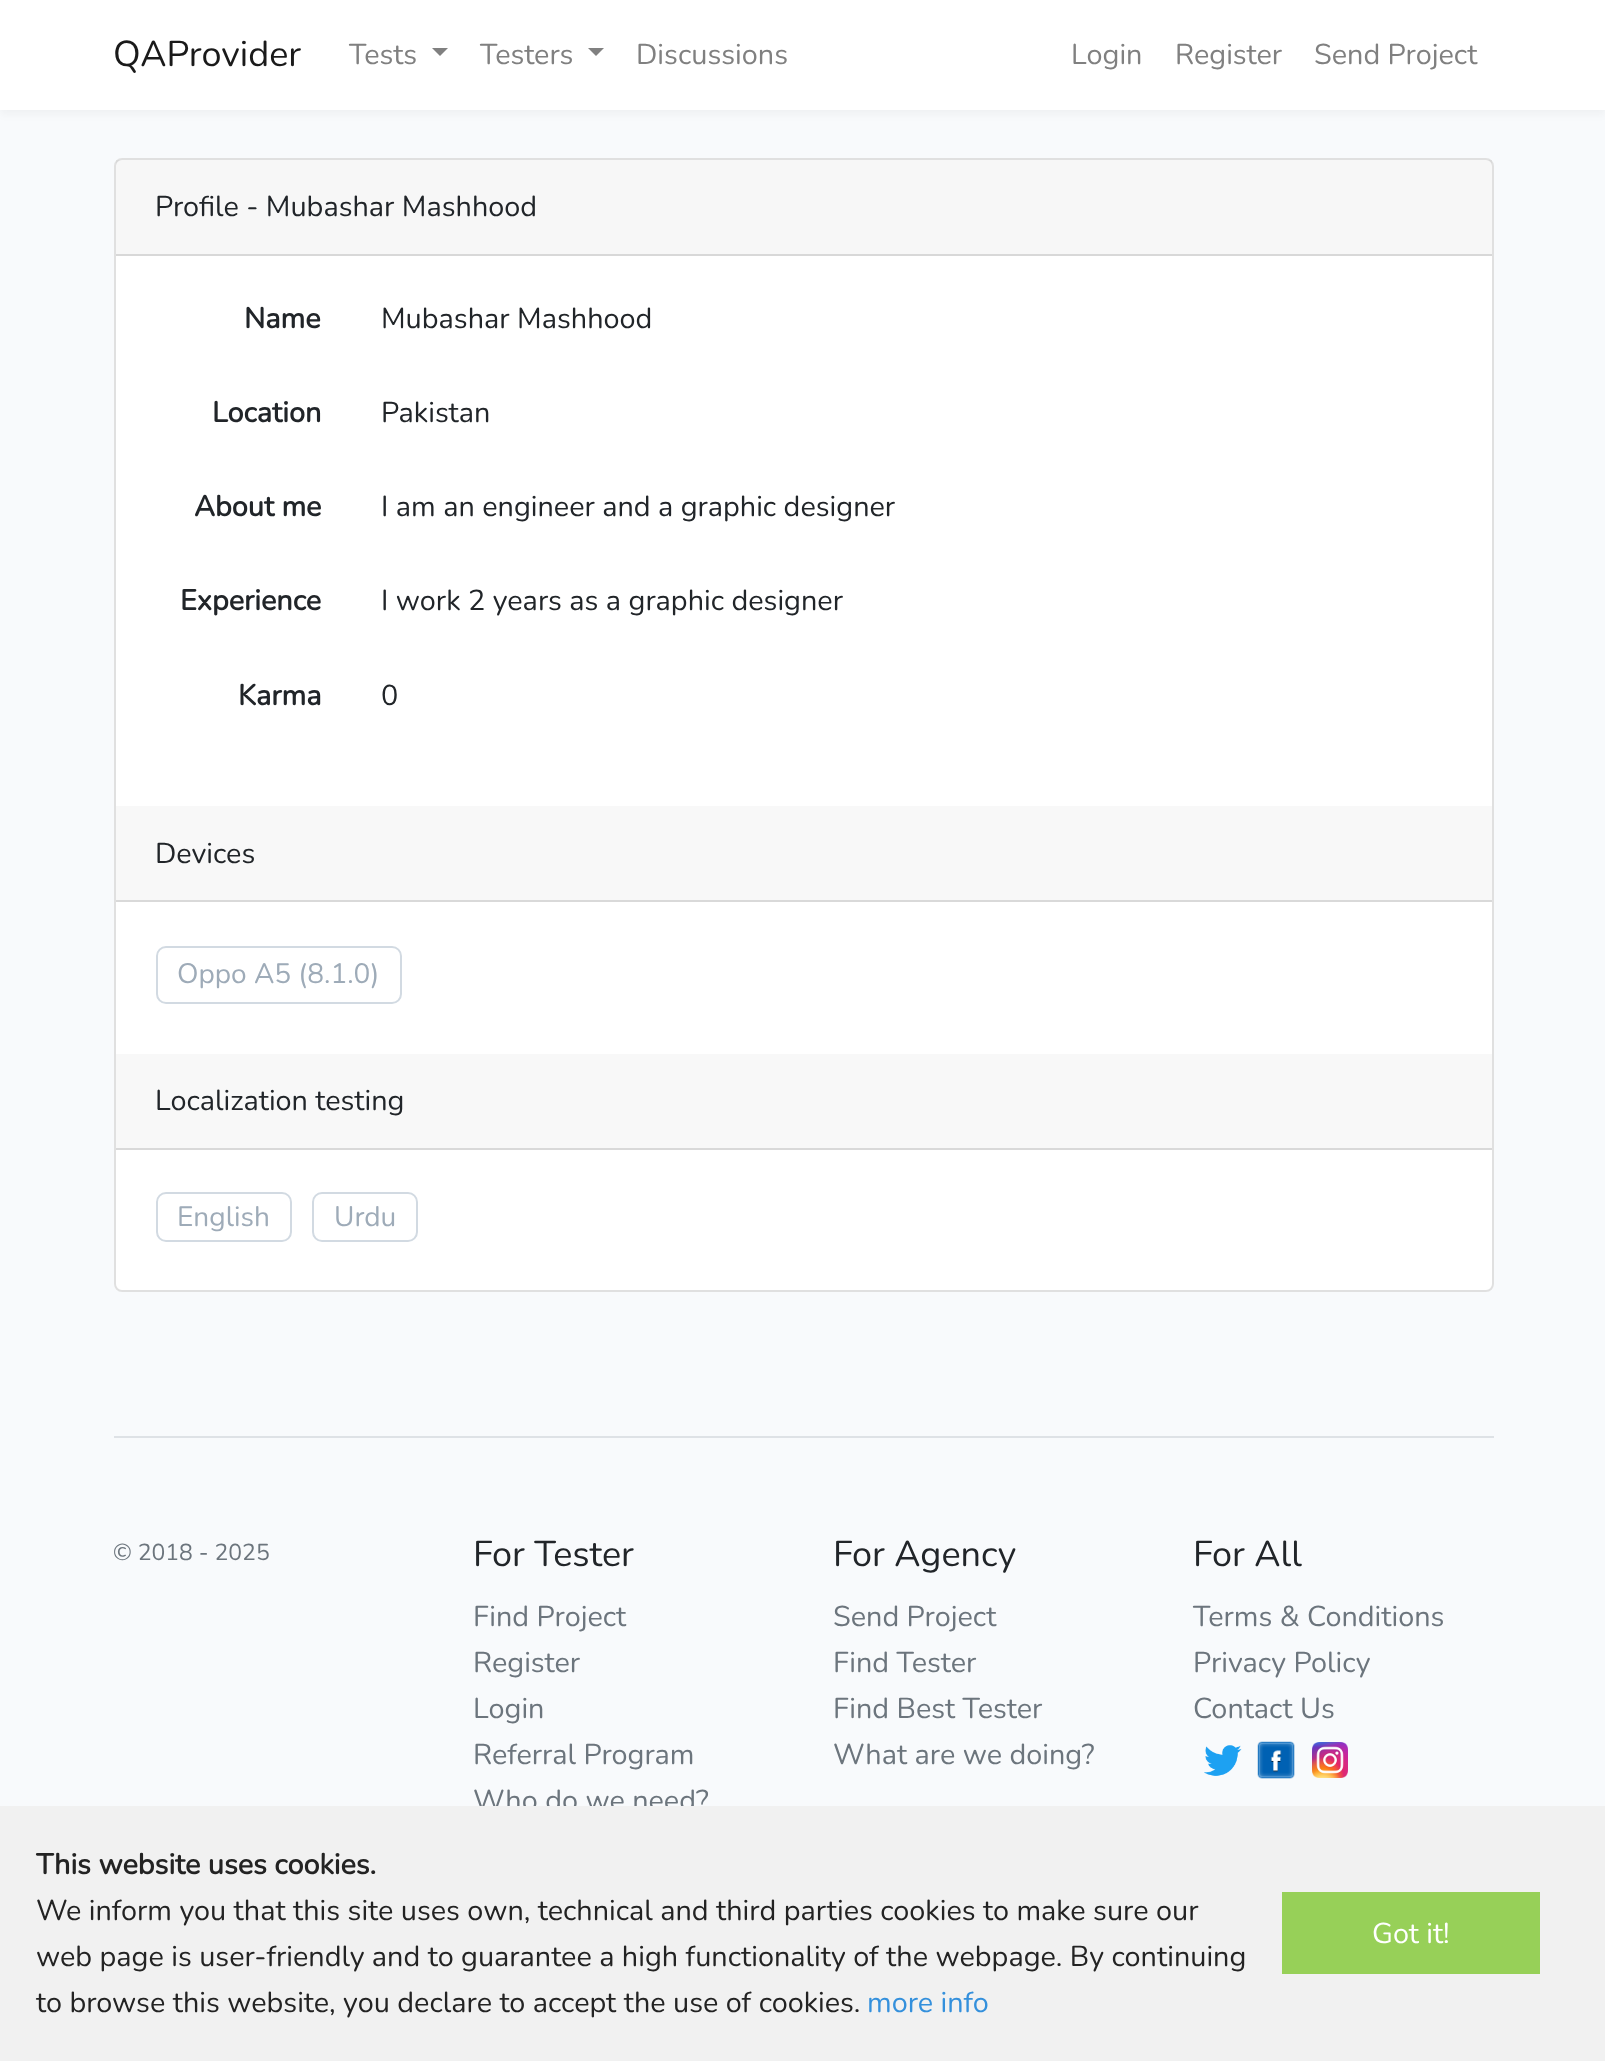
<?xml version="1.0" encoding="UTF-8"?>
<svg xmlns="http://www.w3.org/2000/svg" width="1605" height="2061">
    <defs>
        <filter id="blur1" x="-50%" y="-200%" width="200%" height="500%"><feGaussianBlur stdDeviation="4"/></filter>
    </defs>
    <rect width="100%" height="100%" fill="#F8FAFC"/>
    <rect x="0" y="4" width="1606" height="110" fill="#000000" fill-opacity="0.04" filter="url(#blur1)"/>
    <rect x="0" y="0" width="1605" height="110" fill="#FFFFFF"/>
    <text x="113" y="66" font-family="Nunito" font-size="36" font-weight="200" fill="#1A1A1A">QAProvider</text>
    <text x="349" y="64" font-family="Nunito" font-size="28.8" font-weight="200" fill="#808080">Tests</text>
    <path d="M 432 48 H 448 L 440 56 Z" fill="#808080"/>
    <text x="480" y="64" font-family="Nunito" font-size="28.8" font-weight="200" fill="#808080">Testers</text>
    <path d="M 588 48 H 604 L 596 56 Z" fill="#808080"/>
    <text x="636" y="64" font-family="Nunito" font-size="28.8" font-weight="200" fill="#808080">Discussions</text>
    <text x="1071" y="64" font-family="Nunito" font-size="28.8" font-weight="200" fill="#808080">Login</text>
    <text x="1175" y="64" font-family="Nunito" font-size="28.8" font-weight="200" fill="#808080">Register</text>
    <text x="1314" y="64" font-family="Nunito" font-size="28.8" font-weight="200" fill="#808080">Send Project</text>
    <rect x="114" y="158" width="1380" height="1134" rx="8" fill="#FFFFFF"/>
    <rect x="115" y="159" width="1378" height="1132" rx="7" fill="none" stroke="#000000" stroke-opacity="0.12" stroke-width="2"/>
    <rect x="116" y="160" width="1376" height="94" fill="#000000" fill-opacity="0.03"/>
    <rect x="116" y="254" width="1376" height="2" fill="#D8D8D8"/>
    <text x="155" y="216" font-family="Nunito" font-size="28.8" font-weight="200" fill="#212529">Profile - Mubashar Mashhood</text>
    <text x="244" y="328" font-family="Nunito" font-size="28.8" font-weight="700" fill="#212529">Name</text>
    <text x="381" y="328" font-family="Nunito" font-size="28.8" font-weight="200" fill="#212529">Mubashar Mashhood</text>
    <text x="212" y="422" font-family="Nunito" font-size="28.8" font-weight="700" fill="#212529">Location</text>
    <text x="381" y="422" font-family="Nunito" font-size="28.8" font-weight="200" fill="#212529">Pakistan</text>
    <text x="194" y="516" font-family="Nunito" font-size="28.8" font-weight="700" fill="#212529">About me</text>
    <text x="381" y="516" font-family="Nunito" font-size="28.8" font-weight="200" fill="#212529">I am an engineer and a graphic designer</text>
    <text x="180" y="610" font-family="Nunito" font-size="28.8" font-weight="700" fill="#212529">Experience</text>
    <text x="381" y="610" font-family="Nunito" font-size="28.8" font-weight="200" fill="#212529">I work 2 years as a graphic designer</text>
    <text x="238" y="705" font-family="Nunito" font-size="28.8" font-weight="700" fill="#212529">Karma</text>
    <text x="381" y="705" font-family="Nunito" font-size="28.8" font-weight="200" fill="#212529">0</text>
    <rect x="116" y="806" width="1376" height="94" fill="#F8F8F8"/>
    <rect x="116" y="900" width="1376" height="2" fill="#D9D9D9"/>
    <text x="155" y="863" font-family="Nunito" font-size="28.8" font-weight="200" fill="#212529">Devices</text>
    <rect x="157" y="947" width="244" height="56" rx="9" fill="none" stroke="#D2DAE2" stroke-width="2"/>
    <text x="177" y="983" font-family="Nunito" font-size="28" font-weight="200" fill="#9EABB8">Oppo A5 (8.1.0)</text>
    <rect x="116" y="1054" width="1376" height="94" fill="#F8F8F8"/>
    <rect x="116" y="1148" width="1376" height="2" fill="#D9D9D9"/>
    <text x="155" y="1110" font-family="Nunito" font-size="28.8" font-weight="200" fill="#212529">Localization testing</text>
    <rect x="157" y="1193" width="134" height="48" rx="9" fill="none" stroke="#D2DAE2" stroke-width="2"/>
    <text x="177" y="1226" font-family="Nunito" font-size="28" font-weight="200" fill="#9EABB8">English</text>
    <rect x="313" y="1193" width="104" height="48" rx="9" fill="none" stroke="#D2DAE2" stroke-width="2"/>
    <text x="334" y="1226" font-family="Nunito" font-size="28" font-weight="200" fill="#9EABB8">Urdu</text>
    <rect x="114" y="1436" width="1380" height="2" fill="#DEE2E6"/>
    <text x="113" y="1560" font-family="Nunito" font-size="23" font-weight="200" fill="#6C757D">© 2018 - 2025</text>
    <text x="473" y="1566" font-family="Nunito" font-size="36" font-weight="200" fill="#212529">For Tester</text>
    <text font-family="Nunito" font-size="28.8" font-weight="200" fill="#6C757D">
        <tspan x="473" y="1626">Find Project</tspan>
        <tspan x="473" y="1672">Register</tspan>
        <tspan x="473" y="1718">Login</tspan>
        <tspan x="473" y="1764">Referral Program</tspan>
        <tspan x="473" y="1810">Who do we need?</tspan>
    </text>
    <text x="833" y="1566" font-family="Nunito" font-size="36" font-weight="200" fill="#212529">For Agency</text>
    <text font-family="Nunito" font-size="28.8" font-weight="200" fill="#6C757D">
        <tspan x="833" y="1626">Send Project</tspan>
        <tspan x="833" y="1672">Find Tester</tspan>
        <tspan x="833" y="1718">Find Best Tester</tspan>
        <tspan x="833" y="1764">What are we doing?</tspan>
    </text>
    <text x="1193" y="1566" font-family="Nunito" font-size="36" font-weight="200" fill="#212529">For All</text>
    <text font-family="Nunito" font-size="28.8" font-weight="200" fill="#6C757D">
        <tspan x="1193" y="1626">Terms &amp; Conditions</tspan>
        <tspan x="1193" y="1672">Privacy Policy</tspan>
        <tspan x="1193" y="1718">Contact Us</tspan>
    </text>
    <image x="1204" y="1745" width="38" height="31" href="img_01.png"/>
    <image x="1257" y="1741" width="38" height="38" href="img_02.png"/>
    <image x="1312" y="1742" width="36" height="36" href="img_03.png"/>
    <rect x="0" y="1806" width="1605" height="255" fill="#F1F1F1"/>
    <text x="36" y="1874" font-family="Nunito" font-size="28.8" font-weight="700" fill="#232323">This website uses cookies.</text>
    <text font-family="Nunito" font-size="28.8" font-weight="200" fill="#232323">
        <tspan x="36" y="1920">We inform you that this site uses own, technical and third parties cookies to make sure our</tspan>
        <tspan x="36" y="1966">web page is user-friendly and to guarantee a high functionality of the webpage. By continuing</tspan>
        <tspan x="36" y="2012">to browse this website, you declare to accept the use of cookies.</tspan>
    </text>
    <text x="867" y="2012" font-family="Nunito" font-size="28.8" font-weight="200" fill="#3490DC">more info</text>
    <rect x="1282" y="1892" width="258" height="82" fill="#97D058"/>
    <text x="1372" y="1943" font-family="Nunito" font-size="28.8" font-weight="200" fill="#FFFFFF">Got it!</text>
</svg>
